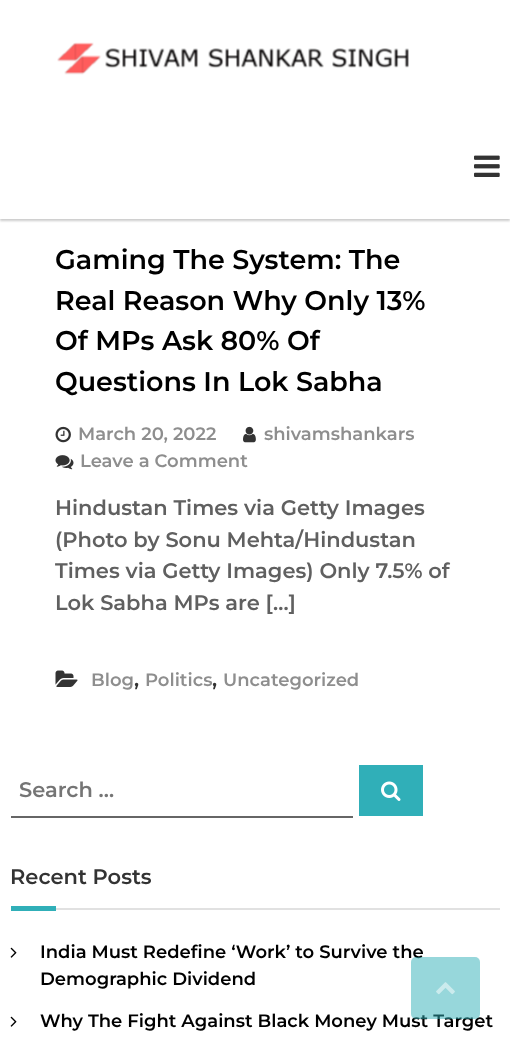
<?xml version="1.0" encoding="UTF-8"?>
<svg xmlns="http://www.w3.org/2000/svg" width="510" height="1048">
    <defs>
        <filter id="blur1" x="-50%" y="-200%" width="200%" height="500%"><feGaussianBlur stdDeviation="1"/></filter>
    </defs>
    <rect width="100%" height="100%" fill="#FFFFFF"/>
    <rect x="0" y="2" width="510" height="219" fill="#000000" fill-opacity="0.2" filter="url(#blur1)"/>
    <rect x="0" y="0" width="510" height="219" fill="#FFFFFF"/>
    <image x="57" y="42" width="352" height="33" href="img_01.png"/>
    <image x="474" y="155" width="26" height="22" href="img_02.png"/>
    <text font-family="Montserrat" font-size="27" font-weight="600" fill="#000000">
        <tspan x="55" y="269">Gaming The System: The</tspan>
        <tspan x="55" y="310">Real Reason Why Only 13%</tspan>
        <tspan x="55" y="350">Of MPs Ask 80% Of</tspan>
        <tspan x="55" y="391">Questions In Lok Sabha</tspan>
    </text>
    <image x="55" y="426" width="16" height="17" href="img_03.png"/>
    <text x="78" y="440" font-family="Montserrat" font-size="18" font-weight="600" fill="#8E8E8E">March 20, 2022</text>
    <image x="243" y="426" width="13" height="17" href="img_04.png"/>
    <text x="264" y="440" font-family="Montserrat" font-size="18" font-weight="600" fill="#8E8E8E">shivamshankars</text>
    <image x="55" y="455" width="19" height="15" href="img_05.png"/>
    <text x="80" y="467" font-family="Montserrat" font-size="18" font-weight="600" fill="#8E8E8E">Leave a Comment</text>
    <text font-family="Montserrat" font-size="21" font-weight="600" fill="#606060">
        <tspan x="55" y="515">Hindustan Times via Getty Images</tspan>
        <tspan x="55" y="547">(Photo by Sonu Mehta/Hindustan</tspan>
        <tspan x="55" y="578">Times via Getty Images) Only 7.5% of</tspan>
        <tspan x="55" y="610">Lok Sabha MPs are […]</tspan>
    </text>
    <image x="55" y="670" width="23" height="17" href="img_06.png"/>
    <text x="91" y="686" font-family="Montserrat" font-size="18" font-weight="600" fill="#8E8E8E">Blog</text>
    <text x="134" y="686" font-family="Montserrat" font-size="21" font-weight="600" fill="#333333">,</text>
    <text x="145" y="686" font-family="Montserrat" font-size="18" font-weight="600" fill="#8E8E8E">Politics</text>
    <text x="212" y="686" font-family="Montserrat" font-size="21" font-weight="600" fill="#333333">,</text>
    <text x="223" y="686" font-family="Montserrat" font-size="18" font-weight="600" fill="#8E8E8E">Uncategorized</text>
    <rect x="11" y="816" width="342" height="2" fill="#666666"/>
    <text x="19" y="797" font-family="Montserrat" font-size="21" font-weight="600" fill="#757575">Search …</text>
    <rect x="359" y="765" width="64" height="51" fill="#30AFB8"/>
    <image x="381" y="781" width="20" height="20" href="img_07.png"/>
    <text x="10" y="884" font-family="Montserrat" font-size="21" font-weight="600" fill="#333333">Recent Posts</text>
    <rect x="11" y="906" width="45" height="5" fill="#30AFB8"/>
    <rect x="56" y="908" width="444" height="2" fill="#E1E1E1"/>
    <image x="10" y="947" width="7" height="11" href="img_08.png"/>
    <text font-family="Montserrat" font-size="18" font-weight="600" fill="#000000">
        <tspan x="40" y="958">India Must Redefine ‘Work’ to Survive the</tspan>
        <tspan x="40" y="985">Demographic Dividend</tspan>
    </text>
    <image x="10" y="1016" width="7" height="11" href="img_08.png"/>
    <text x="40" y="1027" font-family="Montserrat" font-size="18" font-weight="600" fill="#000000">Why The Fight Against Black Money Must Target</text>
    <rect x="411" y="957" width="69" height="62" rx="5" fill="#30AFB8" fill-opacity="0.5"/>
    <image x="436" y="982" width="19" height="13" href="img_09.png"/>
</svg>
